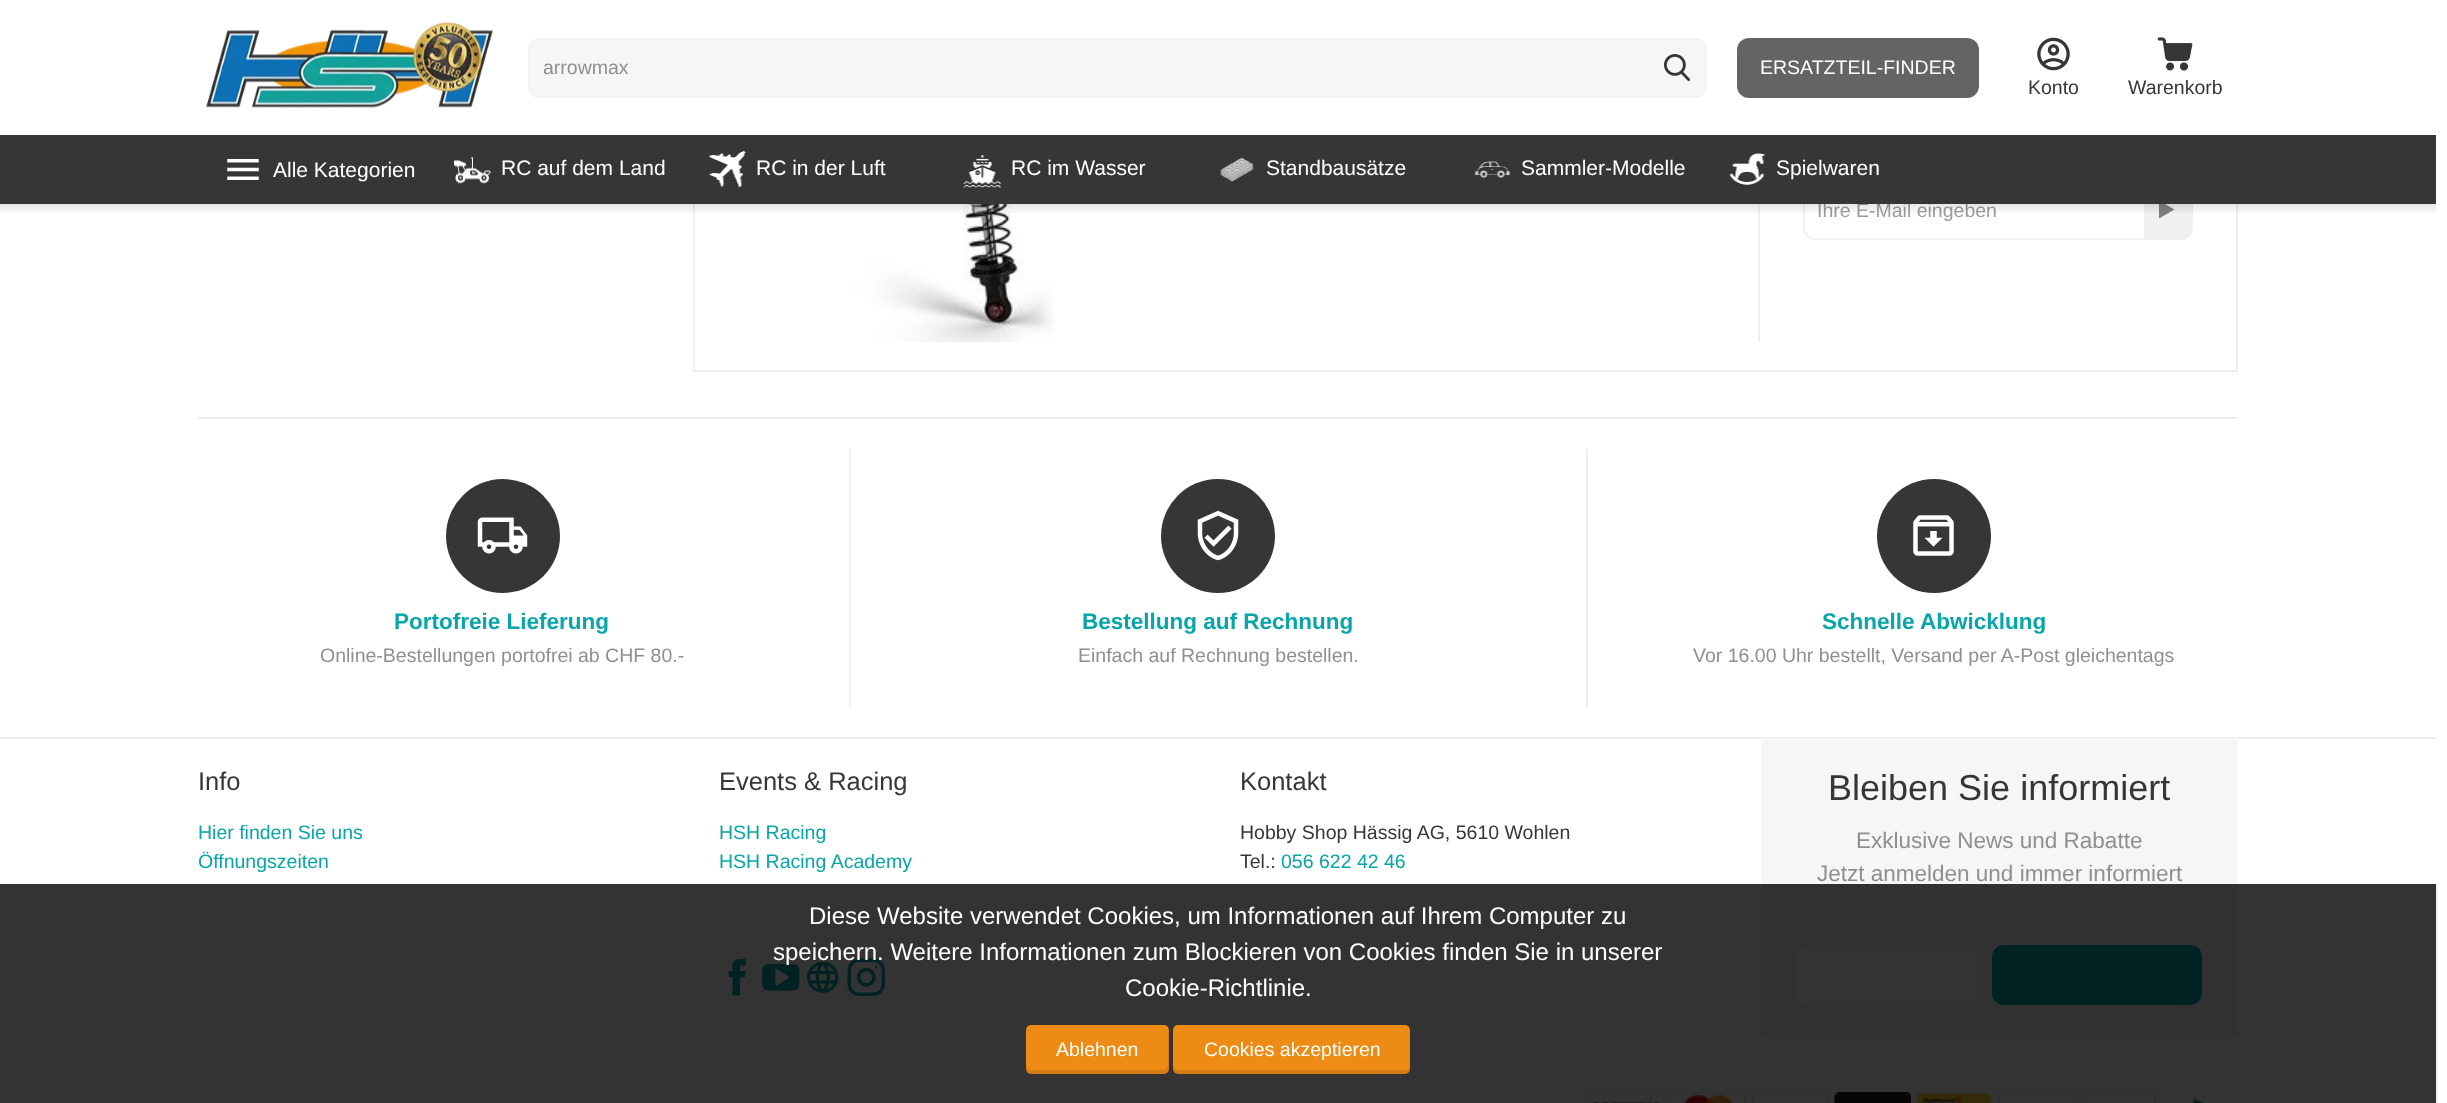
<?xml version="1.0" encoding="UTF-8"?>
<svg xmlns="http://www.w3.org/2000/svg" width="2447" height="1103">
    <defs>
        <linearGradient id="g1" gradientUnits="userSpaceOnUse" x1="1218" y1="204" x2="1218" y2="215"><stop offset="0" stop-color="#000000" stop-opacity="0.1"/><stop offset="1" stop-color="#000000" stop-opacity="0"/></linearGradient>
        <clipPath id="clip1"><rect x="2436" y="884" width="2" height="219"/></clipPath>
        <filter id="blur1" x="-50%" y="-200%" width="200%" height="500%"><feGaussianBlur stdDeviation="1.5"/></filter>
    </defs>
    <rect width="100%" height="100%" fill="#FFFFFF"/>
    <rect x="694" y="-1" width="1543" height="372" fill="none" stroke="#EEEEEE" stroke-width="2"/>
    <rect x="693" y="0" width="1545" height="135" fill="#FFFFFF"/>
    <image x="206" y="22" width="287" height="86" href="img_01.png"/>
    <rect x="529" y="39" width="1177" height="58" rx="11" fill="#F6F6F6" stroke="#F3F3F3" stroke-width="2"/>
    <text x="543" y="74" font-family="Liberation Sans" font-size="19.5" fill="#8F8F8F">arrowmax</text>
    <image x="1664" y="54" width="26" height="27" href="img_02.png"/>
    <rect x="1737" y="38" width="242" height="60" rx="12" fill="#646464"/>
    <text x="1760" y="74" font-family="Liberation Sans" font-size="19.5" fill="#FFFFFF">ERSATZTEIL-FINDER</text>
    <image x="2037" y="37" width="33" height="34" href="img_03.png"/>
    <text x="2028" y="94" font-family="Liberation Sans" font-size="19.5" fill="#363636">Konto</text>
    <image x="2157" y="37" width="36" height="34" href="img_04.png"/>
    <text x="2128" y="94" font-family="Liberation Sans" font-size="19.5" fill="#363636">Warenkorb</text>
    <rect x="1804" y="181" width="388" height="58" rx="11" fill="none" stroke="#F0F0F0" stroke-width="2"/>
    <text x="1817" y="217" font-family="Liberation Sans" font-size="19.5" fill="#9B9B9B">Ihre E-Mail eingeben</text>
    <path d="M 2144 182 H 2180 C 2186.5 182 2192 187.5 2192 194 V 227 C 2192 233.5 2186.5 239 2180 239 H 2144 Z" fill="#F0F0F0"/>
    <path d="M 2159 200.5 L 2174.5 209.5 L 2159 218.5 Z" fill="#808080"/>
    <rect x="0" y="135" width="2436" height="69" fill="#363636"/>
    <image x="227" y="159" width="32" height="21" href="img_05.png"/>
    <text x="273" y="177" font-family="Liberation Sans" font-size="21" fill="#FFFFFF">Alle Kategorien</text>
    <image x="453" y="157" width="38" height="27" href="img_06.png"/>
    <text x="501" y="175" font-family="Liberation Sans" font-size="21" fill="#FFFFFF">RC auf dem Land</text>
    <image x="708" y="151" width="38" height="37" href="img_07.png"/>
    <text x="756" y="175" font-family="Liberation Sans" font-size="21" fill="#FFFFFF">RC in der Luft</text>
    <image x="963" y="155" width="38" height="33" href="img_08.png"/>
    <text x="1011" y="175" font-family="Liberation Sans" font-size="21" fill="#FFFFFF">RC im Wasser</text>
    <image x="1220" y="157" width="34" height="25" href="img_09.png"/>
    <text x="1266" y="175" font-family="Liberation Sans" font-size="21" fill="#FFFFFF">Standbausätze</text>
    <image x="1474" y="161" width="37" height="17" href="img_10.png"/>
    <text x="1521" y="175" font-family="Liberation Sans" font-size="21" fill="#FFFFFF">Sammler-Modelle</text>
    <image x="1729" y="153" width="36" height="32" href="img_11.png"/>
    <text x="1776" y="175" font-family="Liberation Sans" font-size="21" fill="#FFFFFF">Spielwaren</text>
    <image x="771" y="204" width="283" height="138" href="img_12.png"/>
    <rect x="1758" y="204" width="2" height="138" fill="#EEEEEE"/>
    <rect x="0" y="204" width="2436" height="9" fill="url(#g1)"/>
    <rect x="198" y="417" width="2040" height="2" fill="#EEEEEE"/>
    <circle cx="503" cy="536" r="57" fill="#363636"/>
    <image x="477" y="517" width="51" height="37" href="img_13.png"/>
    <text x="394" y="629" font-family="Liberation Sans" font-size="22.5" font-weight="700" fill="#08A6A8">Portofreie Lieferung</text>
    <text x="320" y="662" font-family="Liberation Sans" font-size="19.5" fill="#8F8F8F">Online-Bestellungen portofrei ab CHF 80.-</text>
    <rect x="1586" y="449" width="2" height="258" fill="#EEEEEE"/>
    <rect x="849" y="449" width="2" height="258" fill="#EEEEEE"/>
    <circle cx="1218" cy="536" r="57" fill="#363636"/>
    <image x="1197" y="510" width="42" height="51" href="img_14.png"/>
    <text x="1082" y="629" font-family="Liberation Sans" font-size="22.5" font-weight="700" fill="#08A6A8">Bestellung auf Rechnung</text>
    <text x="1078" y="662" font-family="Liberation Sans" font-size="19.5" fill="#8F8F8F">Einfach auf Rechnung bestellen.</text>
    <circle cx="1934" cy="536" r="57" fill="#363636"/>
    <image x="1913" y="515" width="41" height="41" href="img_15.png"/>
    <text x="1822" y="629" font-family="Liberation Sans" font-size="22.5" font-weight="700" fill="#08A6A8">Schnelle Abwicklung</text>
    <text x="1693" y="662" font-family="Liberation Sans" font-size="19.5" fill="#8F8F8F">Vor 16.00 Uhr bestellt, Versand per A-Post gleichentags</text>
    <rect x="0" y="737" width="2436" height="2" fill="#EEEEEE"/>
    <text x="198" y="790" font-family="Liberation Sans" font-size="25.5" fill="#363636">Info</text>
    <text font-family="Liberation Sans" font-size="19.5" fill="#08A6A8">
        <tspan x="198" y="839">Hier finden Sie uns</tspan>
        <tspan x="198" y="868">Öffnungszeiten</tspan>
    </text>
    <text x="719" y="790" font-family="Liberation Sans" font-size="25.5" fill="#363636">Events &amp; Racing</text>
    <text font-family="Liberation Sans" font-size="19.5" fill="#08A6A8">
        <tspan x="719" y="839">HSH Racing</tspan>
        <tspan x="719" y="868">HSH Racing Academy</tspan>
    </text>
    <image x="728" y="959" width="18" height="37" href="img_16.png"/>
    <image x="762" y="963" width="38" height="28" href="img_17.png"/>
    <image x="807" y="961" width="32" height="32" href="img_18.png"/>
    <image x="847" y="958" width="38" height="38" href="img_19.png"/>
    <text x="1240" y="790" font-family="Liberation Sans" font-size="25.5" fill="#363636">Kontakt</text>
    <text font-family="Liberation Sans" font-size="19.5" fill="#363636">
        <tspan x="1240" y="839">Hobby Shop Hässig AG, 5610 Wohlen</tspan>
        <tspan x="1240" y="868">Tel.:</tspan>
    </text>
    <text x="1281" y="868" font-family="Liberation Sans" font-size="19.5" fill="#08A6A8">056 622 42 46</text>
    <rect x="1761" y="738" width="477" height="297" fill="#F6F6F6"/>
    <text x="1828" y="800" font-family="Liberation Sans" font-size="36" fill="#363636">Bleiben Sie informiert</text>
    <text x="1856" y="848" font-family="Liberation Sans" font-size="22.5" fill="#8F8F8F">Exklusive News und Rabatte</text>
    <text x="1817" y="881" font-family="Liberation Sans" font-size="22.5" fill="#8F8F8F">Jetzt anmelden und immer informiert</text>
    <rect x="1797" y="945" width="180" height="60" rx="12" fill="#FFFFFF"/>
    <rect x="1992" y="945" width="210" height="60" rx="12" fill="#00A9AA"/>
    <image x="1588" y="1092" width="77" height="11" href="img_20.png"/>
    <image x="1669" y="1092" width="77" height="11" href="img_21.png"/>
    <image x="1752" y="1092" width="77" height="11" href="img_22.png"/>
    <image x="1834" y="1092" width="77" height="11" href="img_23.png"/>
    <image x="1915" y="1092" width="77" height="11" href="img_24.png"/>
    <image x="1998" y="1092" width="77" height="11" href="img_25.png"/>
    <image x="2079" y="1092" width="77" height="11" href="img_22.png"/>
    <image x="2191" y="1098" width="15" height="5" href="img_26.png"/>
    <g clip-path="url(#clip1)">
        <rect x="0" y="885" width="2436" height="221" fill="#000000" fill-opacity="0.2" filter="url(#blur1)"/>
    </g>
    <rect x="0" y="884" width="2436" height="219" fill="#000000" fill-opacity="0.8"/>
    <text x="809" y="924" font-family="Liberation Sans" font-size="24" fill="#FFFFFF">Diese Website verwendet Cookies, um Informationen auf Ihrem Computer zu</text>
    <text x="773" y="960" font-family="Liberation Sans" font-size="24" fill="#FFFFFF">speichern. Weitere Informationen zum Blockieren von Cookies finden Sie in unserer</text>
    <text x="1125" y="996" font-family="Liberation Sans" font-size="24" fill="#FFFFFF">Cookie-Richtlinie.</text>
    <rect x="1026" y="1025" width="143" height="49" rx="5" fill="#EE8B15"/>
    <path d="M 1026 1065 V 1069 C 1026 1072 1028 1074 1031 1074 H 1164 C 1167 1074 1169 1072 1169 1069 V 1030 C 1169 1029 1169 1028 1168 1027 V 1065 C 1168 1067 1166 1070 1164 1070 H 1030 C 1028 1070 1026 1067 1026 1065 Z" fill="#000000" fill-opacity="0.1"/>
    <text x="1056" y="1056" font-family="Liberation Sans" font-size="19.5" fill="#FFFFFF">Ablehnen</text>
    <rect x="1173" y="1025" width="237" height="49" rx="5" fill="#EE8B15"/>
    <path d="M 1173 1065 V 1069 C 1173 1072 1175 1074 1178 1074 H 1405 C 1408 1074 1410 1072 1410 1069 V 1065 C 1410 1067 1408 1070 1406 1070 H 1178 C 1175 1070 1173 1067 1173 1065 Z" fill="#000000" fill-opacity="0.1"/>
    <text x="1204" y="1056" font-family="Liberation Sans" font-size="19.5" fill="#FFFFFF">Cookies akzeptieren</text>
</svg>
